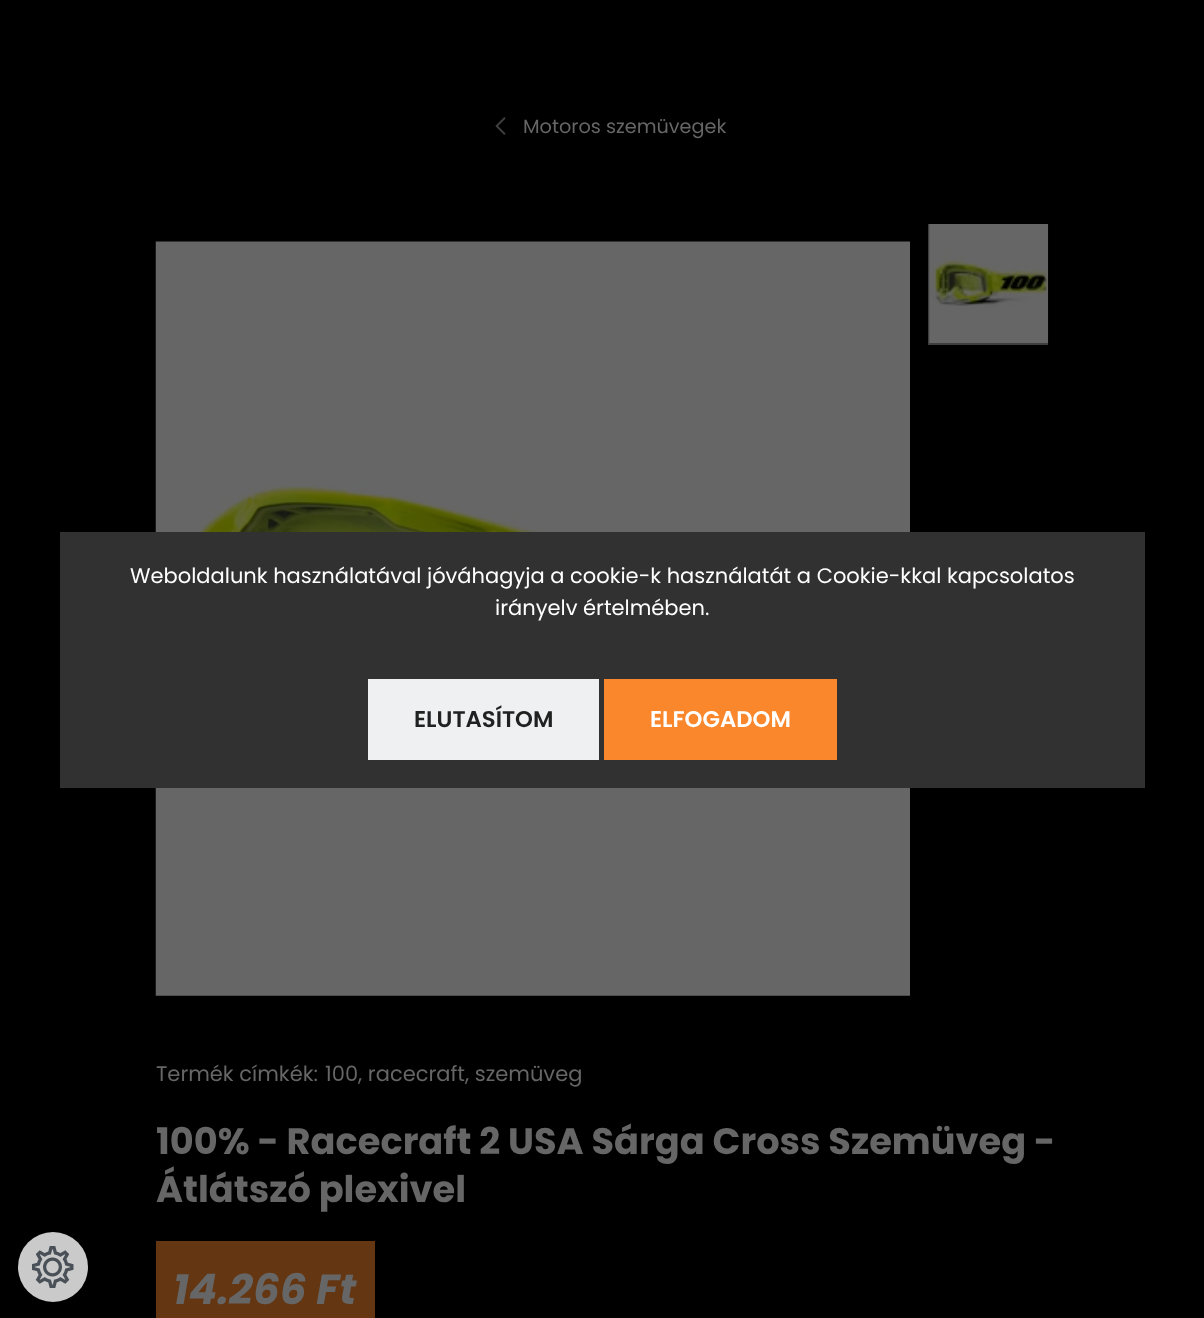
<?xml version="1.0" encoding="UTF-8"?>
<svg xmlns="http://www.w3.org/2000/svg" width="1204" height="1318">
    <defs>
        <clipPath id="clip1"><rect x="928" y="224" width="120" height="788"/></clipPath>
    </defs>
    <rect width="100%" height="100%" fill="#000000"/>
    <image x="495" y="117" width="11" height="18" href="img_01.png"/>
    <text x="523" y="133" font-family="Poppins" font-size="19.25" fill="#666666">Motoros szemüvegek</text>
    <image x="155" y="241" width="755" height="755" href="img_02.png"/>
    <g clip-path="url(#clip1)">
        <rect x="929" y="223" width="120" height="121" fill="none" stroke="#3E3E3E" stroke-width="2"/>
    </g>
    <image x="929" y="224" width="120" height="119" href="img_03.png"/>
    <text x="156" y="1081" font-family="Poppins" font-size="21" fill="#666666">Termék címkék:</text>
    <text x="325" y="1081" font-family="Poppins" font-size="21" fill="#666666">100, racecraft, szemüveg</text>
    <text font-family="Poppins" font-size="36.75" font-weight="700" fill="#666666">
        <tspan x="156" y="1154">100% - Racecraft 2 USA Sárga Cross Szemüveg -</tspan>
        <tspan x="156" y="1202">Átlátszó plexivel</tspan>
    </text>
    <rect x="156" y="1241" width="219" height="77" fill="#643612"/>
    <text x="173" y="1304" font-family="Poppins" font-size="42" font-weight="700" font-style="italic" fill="#666666">14.266 Ft</text>
    <rect x="60" y="532" width="1085" height="256" fill="#313131"/>
    <text x="130" y="583" font-family="Poppins" font-size="21" fill="#FFFFFF">Weboldalunk használatával jóváhagyja a cookie-k használatát a Cookie-kkal kapcsolatos</text>
    <text x="495" y="615" font-family="Poppins" font-size="21" fill="#FFFFFF">irányelv értelmében.</text>
    <rect x="368" y="679" width="231" height="81" fill="#EFF0F1"/>
    <text x="414" y="727" font-family="Poppins" font-size="22.75" font-weight="600" fill="#212121">ELUTASÍTOM</text>
    <rect x="604" y="679" width="233" height="81" fill="#FB872D"/>
    <text x="650" y="727" font-family="Poppins" font-size="22.75" font-weight="600" fill="#FFFFFF">ELFOGADOM</text>
    <circle cx="53" cy="1267" r="35" fill="#CACACA"/>
    <image x="32" y="1246" width="42" height="42" href="img_04.png"/>
</svg>
